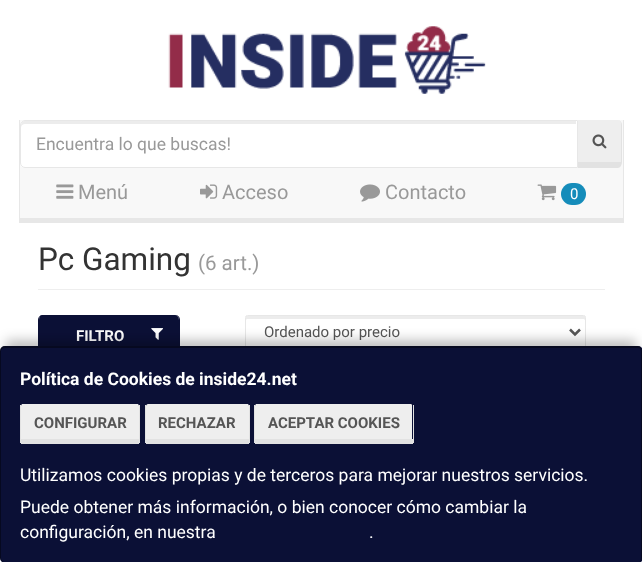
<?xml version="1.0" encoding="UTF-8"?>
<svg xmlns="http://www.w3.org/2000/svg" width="642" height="562">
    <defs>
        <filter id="blur1" x="-50%" y="-200%" width="200%" height="500%"><feGaussianBlur stdDeviation="6"/></filter>
    </defs>
    <rect width="100%" height="100%" fill="#FFFFFF"/>
    <image x="168" y="26" width="318" height="68" href="img_01.png"/>
    <rect x="20" y="120" width="603" height="98" fill="#F8F8F8"/>
    <rect x="623" y="120" width="1" height="103" fill="#E7E7E7"/>
    <rect x="19" y="218" width="605" height="5" fill="#E7E7E7"/>
    <rect x="19" y="120" width="1" height="103" fill="#E7E7E7"/>
    <path d="M 578 120 H 618 C 620 120 621 122 621 125 V 162 H 578 Z" fill="#EEEEEE"/>
    <path d="M 576 120 H 618 C 620 120 622 122 622 125 V 162 C 622 165 620 168 618 168 H 576 Z M 578 120 H 618 C 620 120 621 122 621 125 V 162 H 578 Z" fill="#E2E2E2" fill-rule="evenodd"/>
    <path d="M 25 120 H 578 V 168 H 25 C 22 168 20 166 20 163 V 125 C 20 122 22 120 25 120 Z" fill="#FFFFFF"/>
    <path d="M 25 124 H 576 V 121 H 25 C 21 121 21 125 21 128 C 21 125 23 124 25 124 Z" fill="#ECECEC"/>
    <path d="M 25 120.5 H 577.5 V 167.5 H 25 C 22.5 167.5 20.5 165.5 20.5 163 V 125 C 20.5 122.5 22.5 120.5 25 120.5 Z" fill="none" stroke="#E7E7E7"/>
    <text x="36" y="150" font-family="Roboto" font-size="17.5" fill="#999999">Encuentra lo que buscas!</text>
    <image x="592" y="134" width="15" height="15" href="img_02.png"/>
    <image x="56" y="184" width="18" height="15" href="img_03.png"/>
    <text x="78" y="199" font-family="Roboto" font-size="20" fill="#999999">Menú</text>
    <image x="200" y="184" width="18" height="15" href="img_04.png"/>
    <text x="222" y="199" font-family="Roboto" font-size="20" fill="#999999">Acceso</text>
    <image x="360" y="184" width="20" height="18" href="img_05.png"/>
    <text x="385" y="199" font-family="Roboto" font-size="20" fill="#999999">Contacto</text>
    <image x="537" y="184" width="20" height="17" href="img_06.png"/>
    <rect x="561" y="183" width="25" height="22" rx="11" fill="#158CBA"/>
    <text x="570" y="199" font-family="Roboto" font-size="15" fill="#FFFFFF">0</text>
    <rect x="38" y="289" width="567" height="1" fill="#EEEEEE"/>
    <text x="38" y="270" font-family="Roboto" font-size="31.5" fill="#333333">Pc Gaming</text>
    <text x="198" y="270" font-family="Roboto" font-size="20.5" fill="#999999">(6 art.)</text>
    <path d="M 42 315 H 175 C 177 315 179 317 179 320 V 356 H 39 V 320 C 39 317 40 315 42 315 Z" fill="#0B1036"/>
    <path d="M 42 315 H 175 C 178 315 180 317 180 320 V 356 C 180 359 178 361 175 361 H 42 C 40 361 38 359 38 356 V 320 C 38 317 40 315 42 315 Z M 42 315 H 175 C 177 315 179 317 179 320 V 356 H 39 V 320 C 39 317 40 315 42 315 Z" fill="#0B1036" fill-rule="evenodd"/>
    <text x="76" y="341" font-family="Roboto" font-size="15" font-weight="700" fill="#FFFFFF">FILTRO</text>
    <image x="151" y="328" width="12" height="12" href="img_07.png"/>
    <path d="M 248 319 H 584 L 585 320 C 585 319 586 316 584 316 H 246 V 320 C 246 319 247 319 248 319 Z" fill="#ECECEC"/>
    <rect x="245.5" y="315.5" width="340" height="34" rx="2" fill="none" stroke="#E7E7E7"/>
    <path d="M 570 329.5 L 575 334.5 L 580 329.5" fill="none" stroke="#555555" stroke-width="2.5"/>
    <text x="264" y="337" font-family="Roboto" font-size="15" fill="#555555">Ordenado por precio</text>
    <rect x="6" y="340" width="630" height="204" fill="#000000" fill-opacity="0.25" filter="url(#blur1)"/>
    <rect x="0" y="346" width="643" height="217" rx="5" fill="#0B1036"/>
    <path d="M 5 346 H 638 C 640 346 642 348 642 351 V 558 C 642 560 640 562 638 562 H 5 C 2 562 0 560 0 558 V 351 C 0 348 2 346 5 346 Z M 5 348 H 638 C 640 348 641 349 641 351 V 558 C 641 560 640 562 638 562 H 5 C 3 562 1 560 1 558 V 351 C 1 349 3 348 5 348 Z" fill="#000000" fill-opacity="0.4" fill-rule="evenodd"/>
    <text x="20" y="385" font-family="Roboto" font-size="17.5" font-weight="700" fill="#FFFFFF">Política de Cookies de inside24.net</text>
    <path d="M 22 404 H 138 C 138 404 139 405 139 406 V 439 H 21 V 406 C 21 405 22 404 22 404 Z" fill="#EEEEEE"/>
    <rect x="139" y="405" width="1" height="38" fill="#E2E2E2"/>
    <rect x="21" y="439" width="118" height="5" fill="#E2E2E2"/>
    <rect x="20" y="405" width="1" height="38" fill="#E2E2E2"/>
    <text x="34" y="428" font-family="Roboto" font-size="15" font-weight="700" fill="#555555">CONFIGURAR</text>
    <path d="M 148 404 H 248 C 248 404 249 405 249 406 V 439 H 146 V 406 C 146 405 147 404 148 404 Z" fill="#EEEEEE"/>
    <rect x="249" y="405" width="1" height="38" fill="#E2E2E2"/>
    <rect x="146" y="439" width="103" height="5" fill="#E2E2E2"/>
    <rect x="145" y="405" width="1" height="38" fill="#E2E2E2"/>
    <text x="158" y="428" font-family="Roboto" font-size="15" font-weight="700" fill="#555555">RECHAZAR</text>
    <path d="M 256 404 H 411 C 412 404 412 405 412 406 V 439 H 255 V 406 C 255 405 256 404 256 404 Z" fill="#EEEEEE"/>
    <rect x="413" y="405" width="1" height="38" fill="#E2E2E2"/>
    <rect x="255" y="439" width="158" height="5" fill="#E2E2E2"/>
    <rect x="254" y="405" width="1" height="38" fill="#E2E2E2"/>
    <text x="268" y="428" font-family="Roboto" font-size="15" font-weight="700" fill="#555555">ACEPTAR COOKIES</text>
    <text font-family="Roboto" font-size="17.5" fill="#FFFFFF">
        <tspan x="20" y="481">Utilizamos cookies propias y de terceros para mejorar nuestros servicios.</tspan>
        <tspan x="20" y="513">Puede obtener más información, o bien conocer cómo cambiar la</tspan>
        <tspan x="20" y="538">configuración, en nuestra</tspan>
    </text>
    <text x="369" y="538" font-family="Roboto" font-size="17.5" fill="#FFFFFF">.</text>
</svg>
